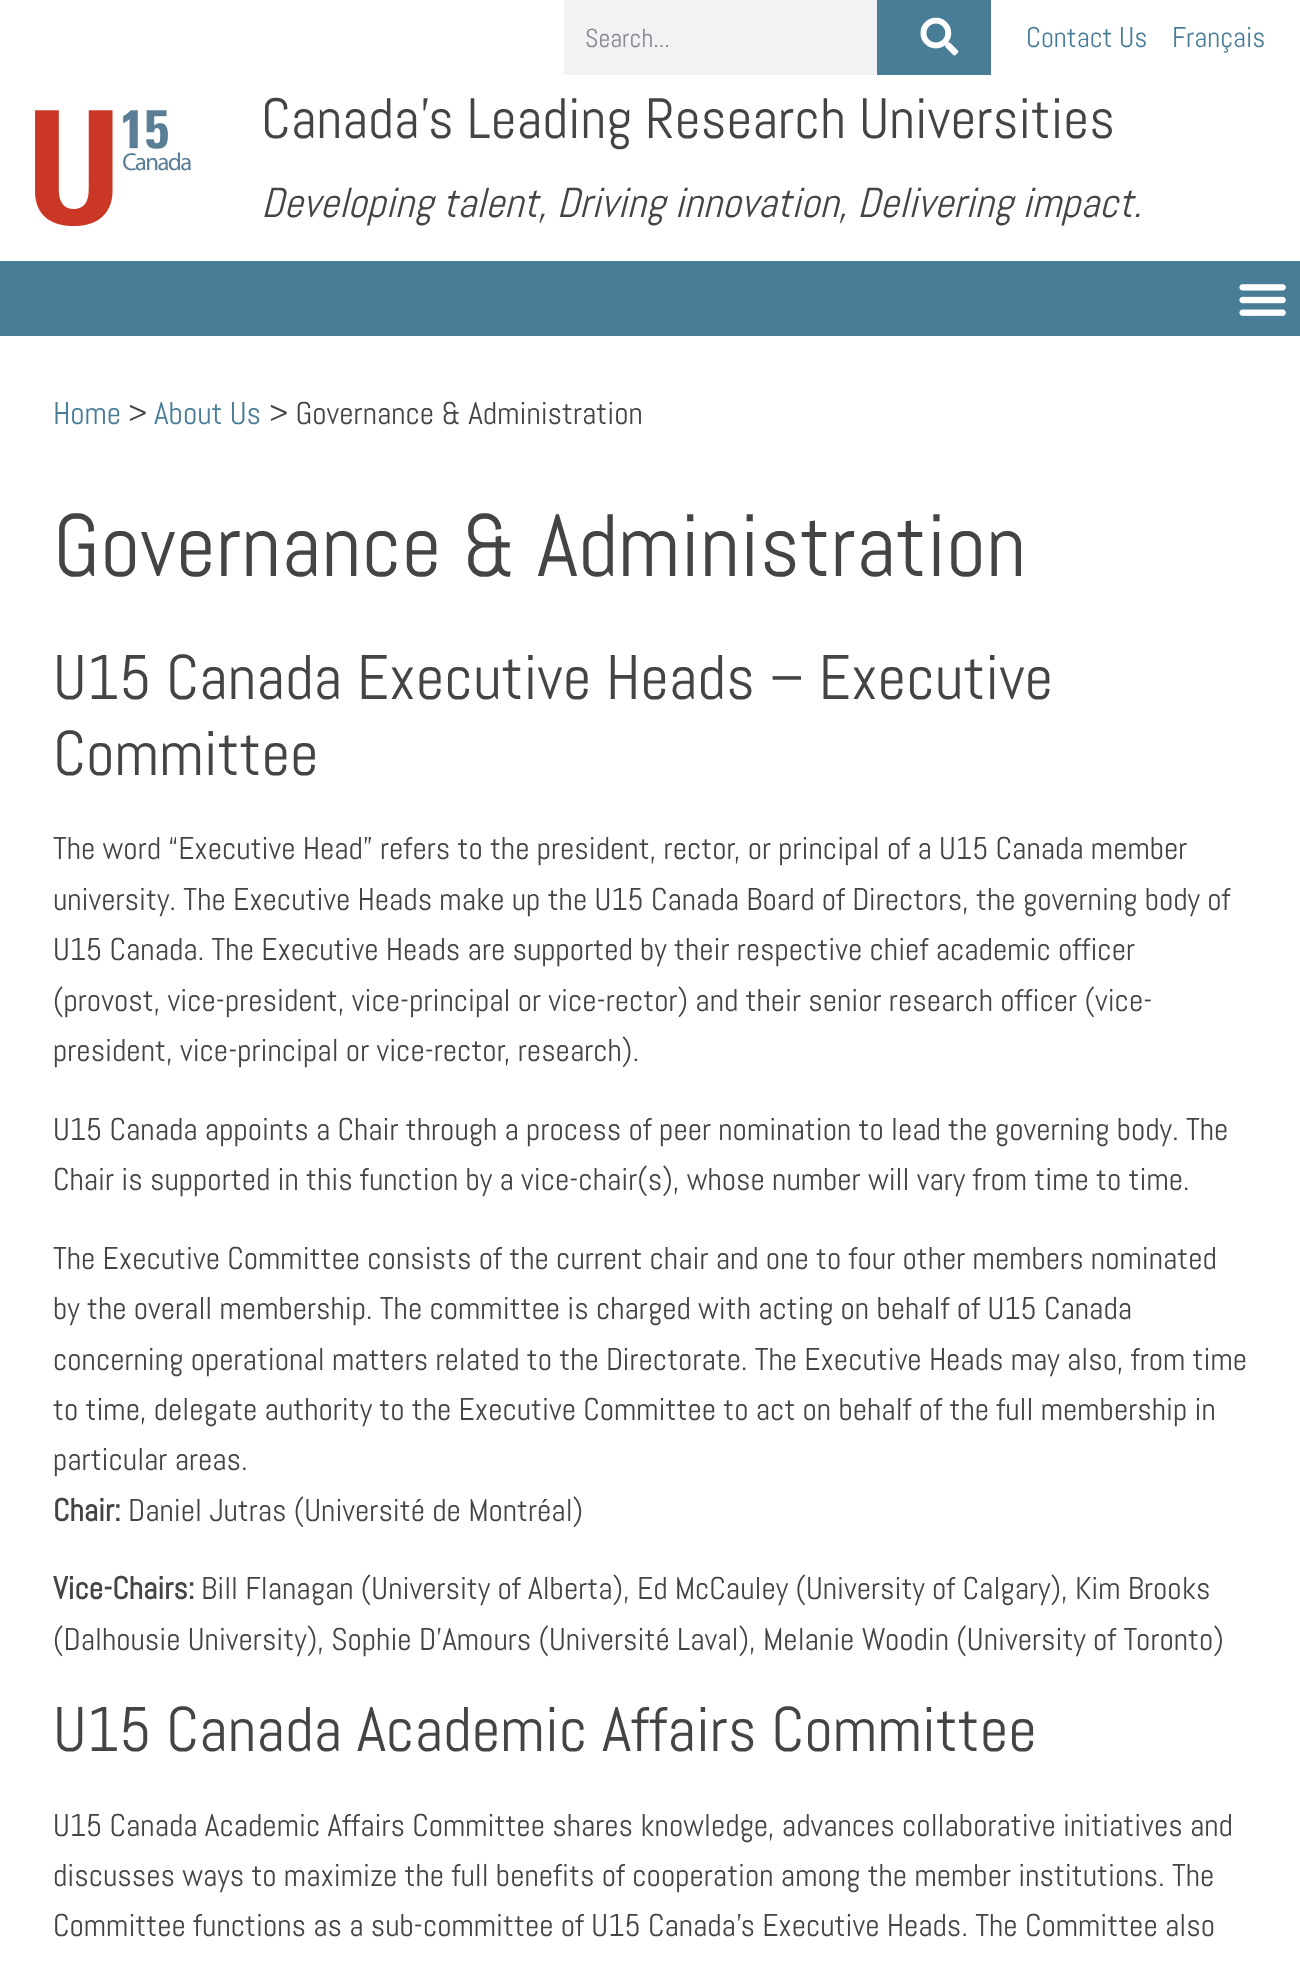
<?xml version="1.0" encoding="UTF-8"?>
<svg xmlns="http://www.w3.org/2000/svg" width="1300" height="1968">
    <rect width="100%" height="100%" fill="#FFFFFF"/>
    <rect x="564" y="0" width="313" height="75" fill="#F1F2F3"/>
    <text x="585" y="47" font-family="Abel" font-size="26" fill="#868A8E">Search...</text>
    <rect x="877" y="0" width="114" height="75" fill="#497D97"/>
    <image x="920" y="17" width="39" height="39" href="img_01.png"/>
    <text x="1026" y="47" font-family="Abel" font-size="28.5" fill="#497D97">Contact Us</text>
    <text x="1172" y="47" font-family="Abel" font-size="28.5" fill="#497D97">Français</text>
    <image x="35" y="110" width="156" height="116" href="img_02.png"/>
    <text x="261" y="138" font-family="Abel" font-size="56.75" fill="#444444">Canada’s Leading Research Universities</text>
    <text x="261" y="217" font-family="Abel" font-size="41.9" font-style="italic" fill="#444444">Developing talent, Driving innovation, Delivering impact.</text>
    <rect x="0" y="261" width="1300" height="75" fill="#497D97"/>
    <image x="1239" y="284" width="47" height="32" href="img_03.png"/>
    <text x="53" y="424" font-family="Abel" font-size="31.5" fill="#497D97">Home</text>
    <text x="128" y="424" font-family="Abel" font-size="31.5" fill="#444444">&gt;</text>
    <text x="154" y="424" font-family="Abel" font-size="31.5" fill="#497D97">About Us</text>
    <text x="269" y="424" font-family="Abel" font-size="31.5" fill="#444444">&gt; Governance &amp; Administration</text>
    <text x="53" y="576" font-family="Abel" font-size="88.25" fill="#444444">Governance &amp; Administration</text>
    <text font-family="Abel" font-size="63" fill="#444444">
        <tspan x="53" y="699">U15 Canada Executive Heads – Executive</tspan>
        <tspan x="53" y="775">Committee</tspan>
    </text>
    <text font-family="Abel" font-size="31.5" fill="#444444">
        <tspan x="53" y="859">The word “Executive Head” refers to the president, rector, or principal of a U15 Canada member</tspan>
        <tspan x="53" y="910">university. The Executive Heads make up the U15 Canada Board of Directors, the governing body of</tspan>
        <tspan x="53" y="960">U15 Canada. The Executive Heads are supported by their respective chief academic officer</tspan>
        <tspan x="53" y="1011">(provost, vice-president, vice-principal or vice-rector) and their senior research officer (vice-</tspan>
        <tspan x="53" y="1061">president, vice-principal or vice-rector, research).</tspan>
    </text>
    <text font-family="Abel" font-size="31.5" fill="#444444">
        <tspan x="53" y="1140">U15 Canada appoints a Chair through a process of peer nomination to lead the governing body. The</tspan>
        <tspan x="53" y="1190">Chair is supported in this function by a vice-chair(s), whose number will vary from time to time.</tspan>
    </text>
    <text font-family="Abel" font-size="31.5" fill="#444444">
        <tspan x="53" y="1269">The Executive Committee consists of the current chair and one to four other members nominated</tspan>
        <tspan x="53" y="1319">by the overall membership. The committee is charged with acting on behalf of U15 Canada</tspan>
        <tspan x="53" y="1370">concerning operational matters related to the Directorate. The Executive Heads may also, from time</tspan>
        <tspan x="53" y="1420">to time, delegate authority to the Executive Committee to act on behalf of the full membership in</tspan>
        <tspan x="53" y="1470">particular areas.</tspan>
    </text>
    <text x="53" y="1521" font-family="Abel" font-size="31.5" font-weight="700" fill="#444444">Chair:</text>
    <text x="128" y="1521" font-family="Abel" font-size="31.5" fill="#444444">Daniel Jutras (Université de Montréal)</text>
    <text x="53" y="1599" font-family="Abel" font-size="31.5" font-weight="700" fill="#444444">Vice-Chairs:</text>
    <text x="201" y="1599" font-family="Abel" font-size="31.5" fill="#444444">Bill Flanagan (University of Alberta), Ed McCauley (University of Calgary), Kim Brooks</text>
    <text x="53" y="1650" font-family="Abel" font-size="31.5" fill="#444444">(Dalhousie University), Sophie D’Amours (Université Laval), Melanie Woodin (University of Toronto)</text>
    <text x="53" y="1751" font-family="Abel" font-size="63" fill="#444444">U15 Canada Academic Affairs Committee</text>
    <text font-family="Abel" font-size="31.5" fill="#444444">
        <tspan x="53" y="1836">U15 Canada Academic Affairs Committee shares knowledge, advances collaborative initiatives and</tspan>
        <tspan x="53" y="1886">discusses ways to maximize the full benefits of cooperation among the member institutions. The</tspan>
        <tspan x="53" y="1936">Committee functions as a sub-committee of U15 Canada’s Executive Heads. The Committee also</tspan>
    </text>
</svg>
